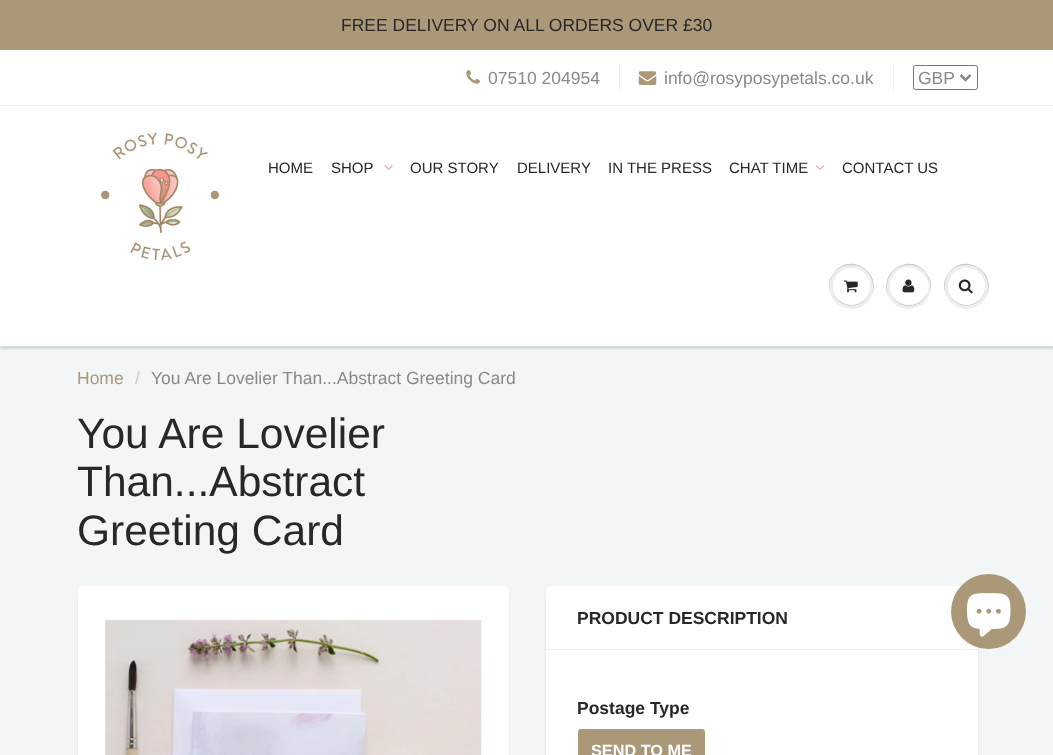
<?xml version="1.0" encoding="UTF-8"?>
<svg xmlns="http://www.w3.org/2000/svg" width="1053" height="755">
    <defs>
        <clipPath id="clip1"><rect x="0" y="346" width="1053" height="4"/></clipPath>
        <filter id="blur1" x="-50%" y="-200%" width="200%" height="500%"><feGaussianBlur stdDeviation="1"/></filter>
    </defs>
    <rect width="100%" height="100%" fill="#FFFFFF"/>
    <rect x="0" y="0" width="1053" height="50" fill="#AB9878"/>
    <text x="341" y="31" font-family="Liberation Sans" font-size="17.5" fill="#282827">FREE DELIVERY ON ALL ORDERS OVER £30</text>
    <image x="466" y="70" width="14" height="14" href="img_01.png"/>
    <text x="488" y="84" font-family="Liberation Sans" font-size="17.5" fill="#898989">07510 204954</text>
    <rect x="619" y="65" width="1" height="25" fill="#ECEFEF"/>
    <image x="638" y="71" width="19" height="14" href="img_02.png"/>
    <text x="664" y="84" font-family="Liberation Sans" font-size="17.5" fill="#898989">info@rosyposypetals.co.uk</text>
    <rect x="893" y="65" width="1" height="25" fill="#ECEFEF"/>
    <rect x="913.5" y="65.5" width="64" height="24" rx="2" fill="none" stroke="#767676"/>
    <path d="M 960.5 75 L 965.5 80 L 970.5 75" fill="none" stroke="#898989" stroke-width="2.5"/>
    <text x="918" y="84" font-family="Liberation Sans" font-size="17.5" fill="#898989">GBP</text>
    <rect x="0" y="346" width="1053" height="409" fill="#F3F6F6"/>
    <g clip-path="url(#clip1)">
        <rect x="0" y="108" width="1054" height="241" fill="#0B191C" fill-opacity="0.12" filter="url(#blur1)"/>
    </g>
    <rect x="0" y="105" width="1053" height="1" fill="#ECEFEF"/>
    <image x="100" y="130" width="120" height="131" href="img_03.png"/>
    <text x="268" y="173" font-family="Liberation Sans" font-size="15" fill="#282827">HOME</text>
    <text x="331" y="173" font-family="Liberation Sans" font-size="15" fill="#282827">SHOP</text>
    <image x="384" y="165" width="9" height="5" href="img_04.png"/>
    <text x="410" y="173" font-family="Liberation Sans" font-size="15" fill="#282827">OUR STORY</text>
    <text x="517" y="173" font-family="Liberation Sans" font-size="15" fill="#282827">DELIVERY</text>
    <text x="608" y="173" font-family="Liberation Sans" font-size="15" fill="#282827">IN THE PRESS</text>
    <text x="729" y="173" font-family="Liberation Sans" font-size="15" fill="#282827">CHAT TIME</text>
    <image x="815" y="165" width="9" height="5" href="img_05.png"/>
    <text x="842" y="173" font-family="Liberation Sans" font-size="15" fill="#282827">CONTACT US</text>
    <circle cx="851.5" cy="286.5" r="22.5" fill="#EDEFEF"/>
    <path d="M 851 265 C 869 265 876 282 872 295 C 882 271 848 251 833 274 C 829 279 828 286 830 292 C 828 279 835 265 851 265 Z" fill="#C9CBCB"/>
    <path d="M 834 294 C 841.5 313 870.5 307.5 870 287 C 869.5 306.5 842.5 311.5 834 294 Z" fill="#C9CBCB"/>
    <circle cx="851.5" cy="286.5" r="18.5" fill="#FFFFFF"/>
    <path d="M 851 269 C 865 269 871 280.5 869.5 291 C 874.5 271.5 848 259 836 276 C 834 279.5 833 283 833 287 C 833 278 839 269 851 269 Z" fill="#FFFFFF"/>
    <image x="843" y="280" width="15" height="13" href="img_06.png"/>
    <circle cx="908.5" cy="286.5" r="22.5" fill="#EDEFEF"/>
    <path d="M 909 265 C 925 265 932 279 930 292 C 932 286 931 279 927 274 C 912 251 878 271 888 295 C 884 282 891 265 909 265 Z" fill="#C9CBCB"/>
    <path d="M 890 287 C 890 292 892 297 895.5 300.5 C 910 315 934.5 299 926.5 280 C 932.5 298.5 910 313.5 895.5 299.5 C 892 296.5 890 291.5 890 287 Z" fill="#C9CBCB"/>
    <rect x="890" y="268" width="38" height="37" rx="18.5" fill="#FFFFFF"/>
    <path d="M 909 269 C 925 269 931 286 925 297 C 939 277 907 255 893 276 C 890 280 889 286 891 291 C 889 281 895 269 909 269 Z" fill="#FFFFFF"/>
    <image x="902" y="279" width="13" height="14" href="img_07.png"/>
    <circle cx="966.5" cy="286.5" r="22.5" fill="#EDEFEF"/>
    <path d="M 966 265 C 984 265 991 282 987 295 C 997 271 963 251 948 274 C 944 279 943 286 945 292 C 943 279 950 265 966 265 Z" fill="#C9CBCB"/>
    <path d="M 949 294 C 956.5 313 985.5 307.5 985 287 C 984.5 306.5 957.5 311.5 949 294 Z" fill="#C9CBCB"/>
    <circle cx="966.5" cy="286.5" r="18.5" fill="#FFFFFF"/>
    <path d="M 966 269 C 980 269 986 280.5 984.5 291 C 989.5 271.5 963 259 951 276 C 949 279.5 948 283 948 287 C 948 278 954 269 966 269 Z" fill="#FFFFFF"/>
    <image x="958" y="279" width="15" height="15" href="img_08.png"/>
    <text x="77" y="384" font-family="Liberation Sans" font-size="17.5" fill="#AB9878">Home</text>
    <text x="135" y="384" font-family="Liberation Sans" font-size="17.5" fill="#CCCCCC">/</text>
    <text x="151" y="384" font-family="Liberation Sans" font-size="17.5" fill="#898989">You Are Lovelier Than...Abstract Greeting Card</text>
    <text font-family="Liberation Sans" font-size="42.5" fill="#282827">
        <tspan x="77" y="448">You Are Lovelier</tspan>
        <tspan x="77" y="496">Than...Abstract</tspan>
        <tspan x="77" y="545">Greeting Card</tspan>
    </text>
    <rect x="78" y="589" width="431" height="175" rx="6" fill="#0B191C" fill-opacity="0.1" filter="url(#blur1)"/>
    <rect x="78" y="586" width="431" height="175" rx="6" fill="#FFFFFF"/>
    <image x="105" y="619" width="377" height="136" href="img_09.png"/>
    <rect x="546" y="589" width="432" height="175" rx="6" fill="#0B191C" fill-opacity="0.1" filter="url(#blur1)"/>
    <rect x="546" y="586" width="432" height="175" rx="6" fill="#FFFFFF"/>
    <rect x="546" y="649" width="432" height="1" fill="#EFEFEF"/>
    <text x="577" y="624" font-family="Liberation Sans" font-size="17.5" font-weight="700" fill="#282827">PRODUCT DESCRIPTION</text>
    <text x="577" y="714" font-family="Liberation Sans" font-size="17.5" font-weight="700" fill="#282827">Postage Type</text>
    <rect x="578.5" y="729.5" width="126" height="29" rx="2" fill="#AB9878" stroke="#AB9878"/>
    <text x="591" y="756" font-family="Liberation Sans" font-size="16.25" font-weight="700" fill="#FFFFFF">SEND TO ME</text>
    <circle cx="988.5" cy="611.5" r="37.5" fill="#AB9878"/>
    <image x="967" y="593" width="44" height="44" href="img_10.png"/>
</svg>
